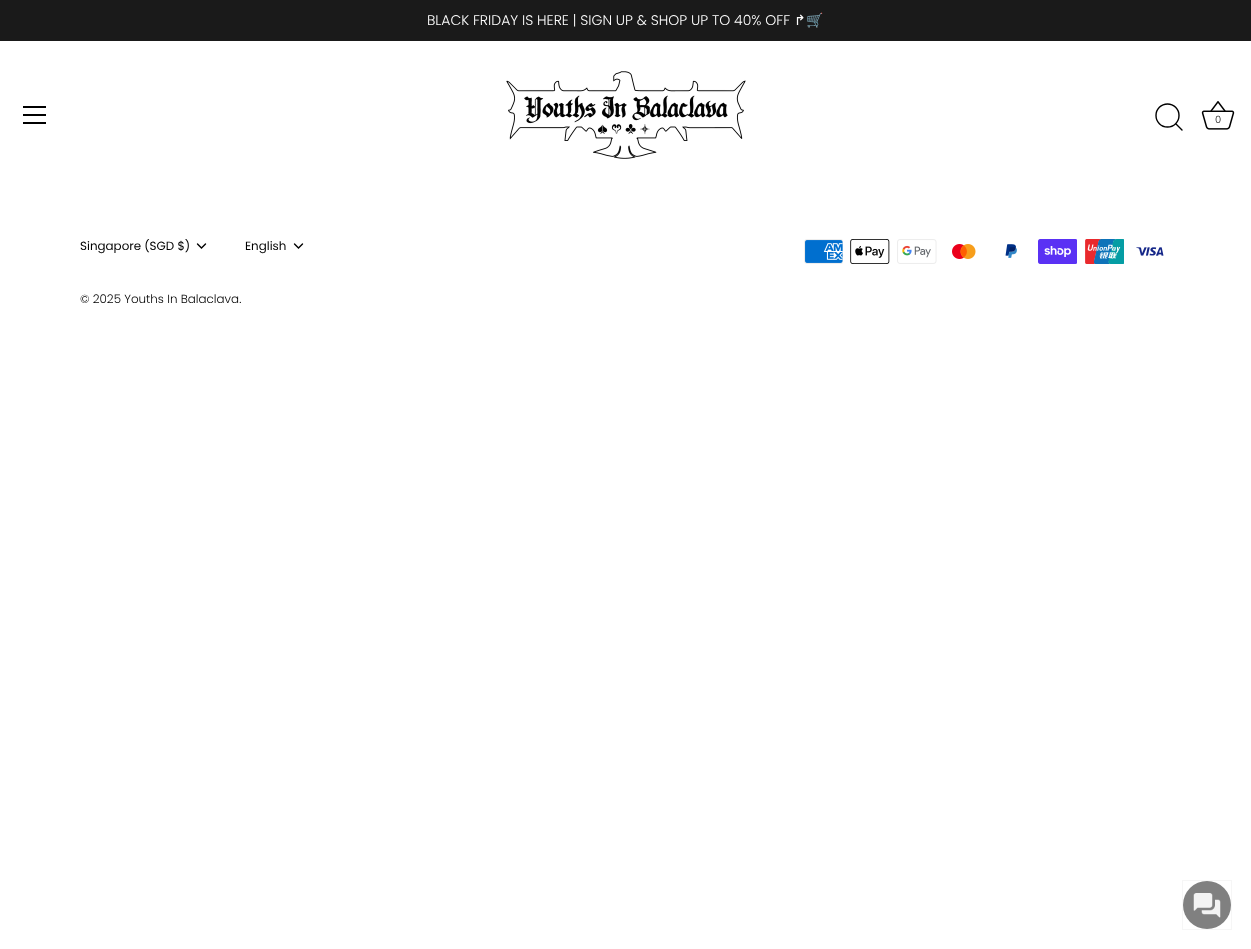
<?xml version="1.0" encoding="UTF-8"?>
<svg xmlns="http://www.w3.org/2000/svg" width="1251" height="949">
    <rect width="100%" height="100%" fill="#FFFFFF"/>
    <rect x="0" y="0" width="1251" height="41" fill="#1A1A1A"/>
    <text x="427" y="25" font-family="Poppins" font-size="14" font-weight="300" fill="#FEFEFE">BLACK FRIDAY IS HERE | SIGN UP &amp; SHOP UP TO 40% OFF</text>
    <text x="794" y="25" font-family="DejaVu Sans" font-size="14" fill="#FEFEFE">↱</text>
    <text x="806" y="25" font-family="Noto Color Emoji" font-size="14" fill="#FEFEFE">🛒</text>
    <rect x="23" y="106" width="23" height="2" fill="#000000"/>
    <rect x="23" y="114" width="23" height="2" fill="#000000"/>
    <rect x="23" y="122" width="23" height="2" fill="#000000"/>
    <image x="506" y="71" width="240" height="88" href="img_01.png"/>
    <circle cx="1167.5" cy="115.5" r="11.5" fill="none" stroke="#000000" stroke-width="1.4"/>
    <path d="M 1182 130 L 1176 124" fill="none" stroke="#000000" stroke-width="1.4" stroke-linecap="round" stroke-linejoin="round"/>
    <image x="1201" y="101" width="34" height="29" href="img_02.png"/>
    <text x="1215" y="123" font-family="Poppins" font-size="10" font-weight="300" fill="#000000">0</text>
    <text x="80" y="250" font-family="Poppins" font-size="11.9" fill="#000000">Singapore (SGD $)</text>
    <path d="M 197.5 244 L 201.5 248 L 205.5 244" fill="none" stroke="#000000" stroke-width="1.4" stroke-linecap="round"/>
    <text x="245" y="250" font-family="Poppins" font-size="11.9" fill="#000000">English</text>
    <path d="M 294.5 244 L 298.5 248 L 302.5 244" fill="none" stroke="#000000" stroke-width="1.4" stroke-linecap="round"/>
    <text x="80" y="303" font-family="Poppins" font-size="11.9" font-weight="300" fill="#000000">© 2025 Youths In Balaclava.</text>
    <image x="804" y="239" width="39" height="25" href="img_03.png"/>
    <image x="850" y="239" width="40" height="25" href="img_04.png"/>
    <image x="897" y="239" width="40" height="25" href="img_05.png"/>
    <image x="952" y="244" width="24" height="15" href="img_06.png"/>
    <image x="1005" y="244" width="12" height="14" href="img_07.png"/>
    <image x="1038" y="239" width="39" height="25" href="img_08.png"/>
    <image x="1085" y="239" width="39" height="25" href="img_09.png"/>
    <image x="1136" y="247" width="28" height="9" href="img_10.png"/>
    <rect x="1182.5" y="880.5" width="49" height="49" fill="none" stroke="#161A1E" stroke-opacity="0.04"/>
    <circle cx="1207" cy="905" r="24" fill="#808080"/>
    <image x="1193" y="893" width="28" height="25" href="img_11.png"/>
</svg>
